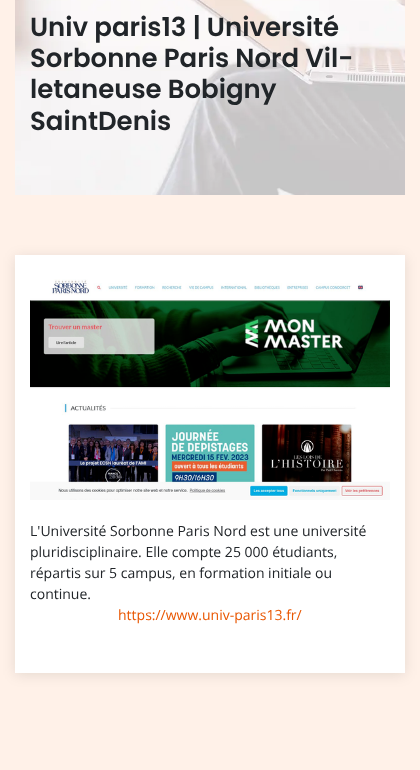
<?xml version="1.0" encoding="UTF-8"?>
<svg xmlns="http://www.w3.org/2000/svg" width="420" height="770">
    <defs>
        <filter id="blur1" x="-50%" y="-200%" width="200%" height="500%"><feGaussianBlur stdDeviation="6.5"/></filter>
    </defs>
    <rect width="100%" height="100%" fill="#FFF1E8"/>
    <image x="15" y="0" width="390" height="195" href="img_01.png"/>
    <text font-family="Poppins" font-size="26" font-weight="600" fill="#212529">
        <tspan x="30" y="36">Univ paris13 | Université</tspan>
        <tspan x="30" y="67">Sorbonne Paris Nord Vil-</tspan>
        <tspan x="30" y="98">letaneuse Bobigny</tspan>
        <tspan x="30" y="130">SaintDenis</tspan>
    </text>
    <rect x="15" y="257" width="390" height="418" fill="#000000" fill-opacity="0.1" filter="url(#blur1)"/>
    <rect x="15" y="255" width="390" height="418" fill="#FFFFFF"/>
    <image x="30" y="279" width="360" height="221" href="img_02.png"/>
    <text font-family="Open Sans" font-size="14" fill="#212529">
        <tspan x="30" y="536">L'Université Sorbonne Paris Nord est une université</tspan>
        <tspan x="30" y="557">pluridisciplinaire. Elle compte 25 000 étudiants,</tspan>
        <tspan x="30" y="578">répartis sur 5 campus, en formation initiale ou</tspan>
        <tspan x="30" y="599">continue.</tspan>
    </text>
    <text x="118" y="620" font-family="Open Sans" font-size="14" fill="#E95600">https://www.univ-paris13.fr/</text>
</svg>
